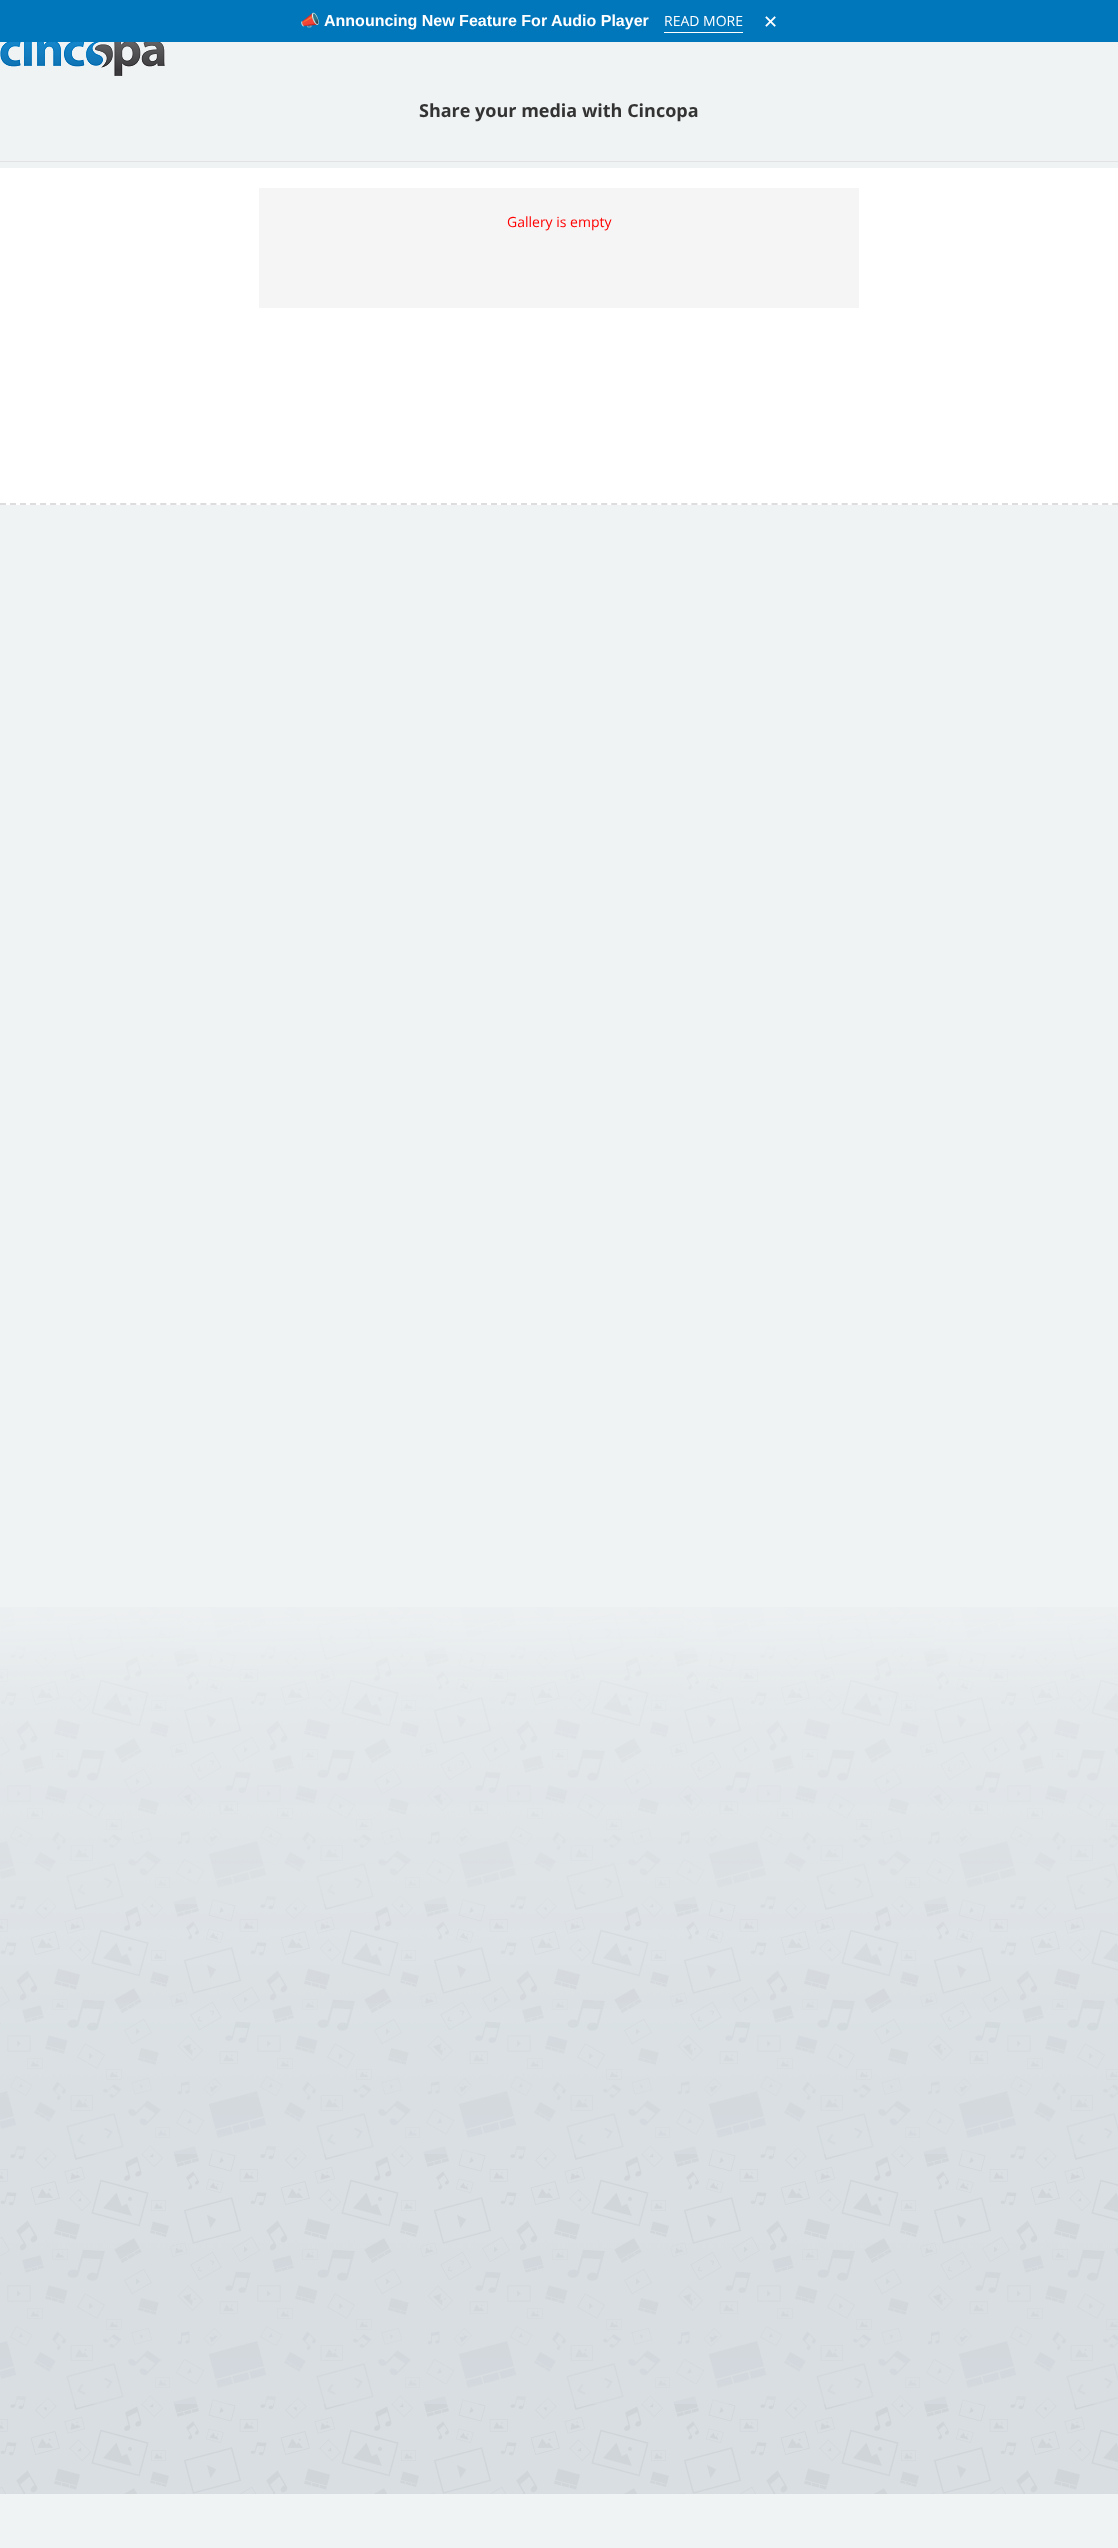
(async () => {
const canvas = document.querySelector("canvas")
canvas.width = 1118
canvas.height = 2548
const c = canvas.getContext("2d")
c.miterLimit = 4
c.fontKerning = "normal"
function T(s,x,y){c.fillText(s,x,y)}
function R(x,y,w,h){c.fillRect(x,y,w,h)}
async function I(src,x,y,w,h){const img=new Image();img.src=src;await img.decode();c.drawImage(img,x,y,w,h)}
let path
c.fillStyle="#f0f3f4"
R(0,0,1118,2548)
c.fillStyle="#0076bb"
R(0,0,1118,42)
c.font="bold 16px Noto Color Emoji"
c.fillStyle="#fff"
T("📣",300,26)
c.font="bold 16px Liberation Sans"
T("Announcing New Feature For Audio Player",324,26)
R(664,32,79,1)
c.font="14px Open Sans"
T("READ MORE",664,26)
c.font="18px DejaVu Sans"
T("✕",763,28)
await I("1.png",0,42,165,34)
c.fillStyle="#e2e2e2"
R(0,161,1118,1)
c.font="bold 18px Open Sans"
c.fillStyle="#333"
T("Share your media with Cincopa",419,117)
c.fillStyle="#fff"
R(0,168,1118,337)
path = new Path2D("M0 504h1118")
c.strokeStyle="#ddd"
c.lineWidth=2
c.setLineDash([6,4.02])
c.stroke(path)
c.fillStyle="#f5f5f5"
R(259,188,600,120)
c.font="14px Open Sans"
c.fillStyle="#f00"
T("Gallery is empty",507,227)
await I("2.png",0,1607,1118,887)
})()
